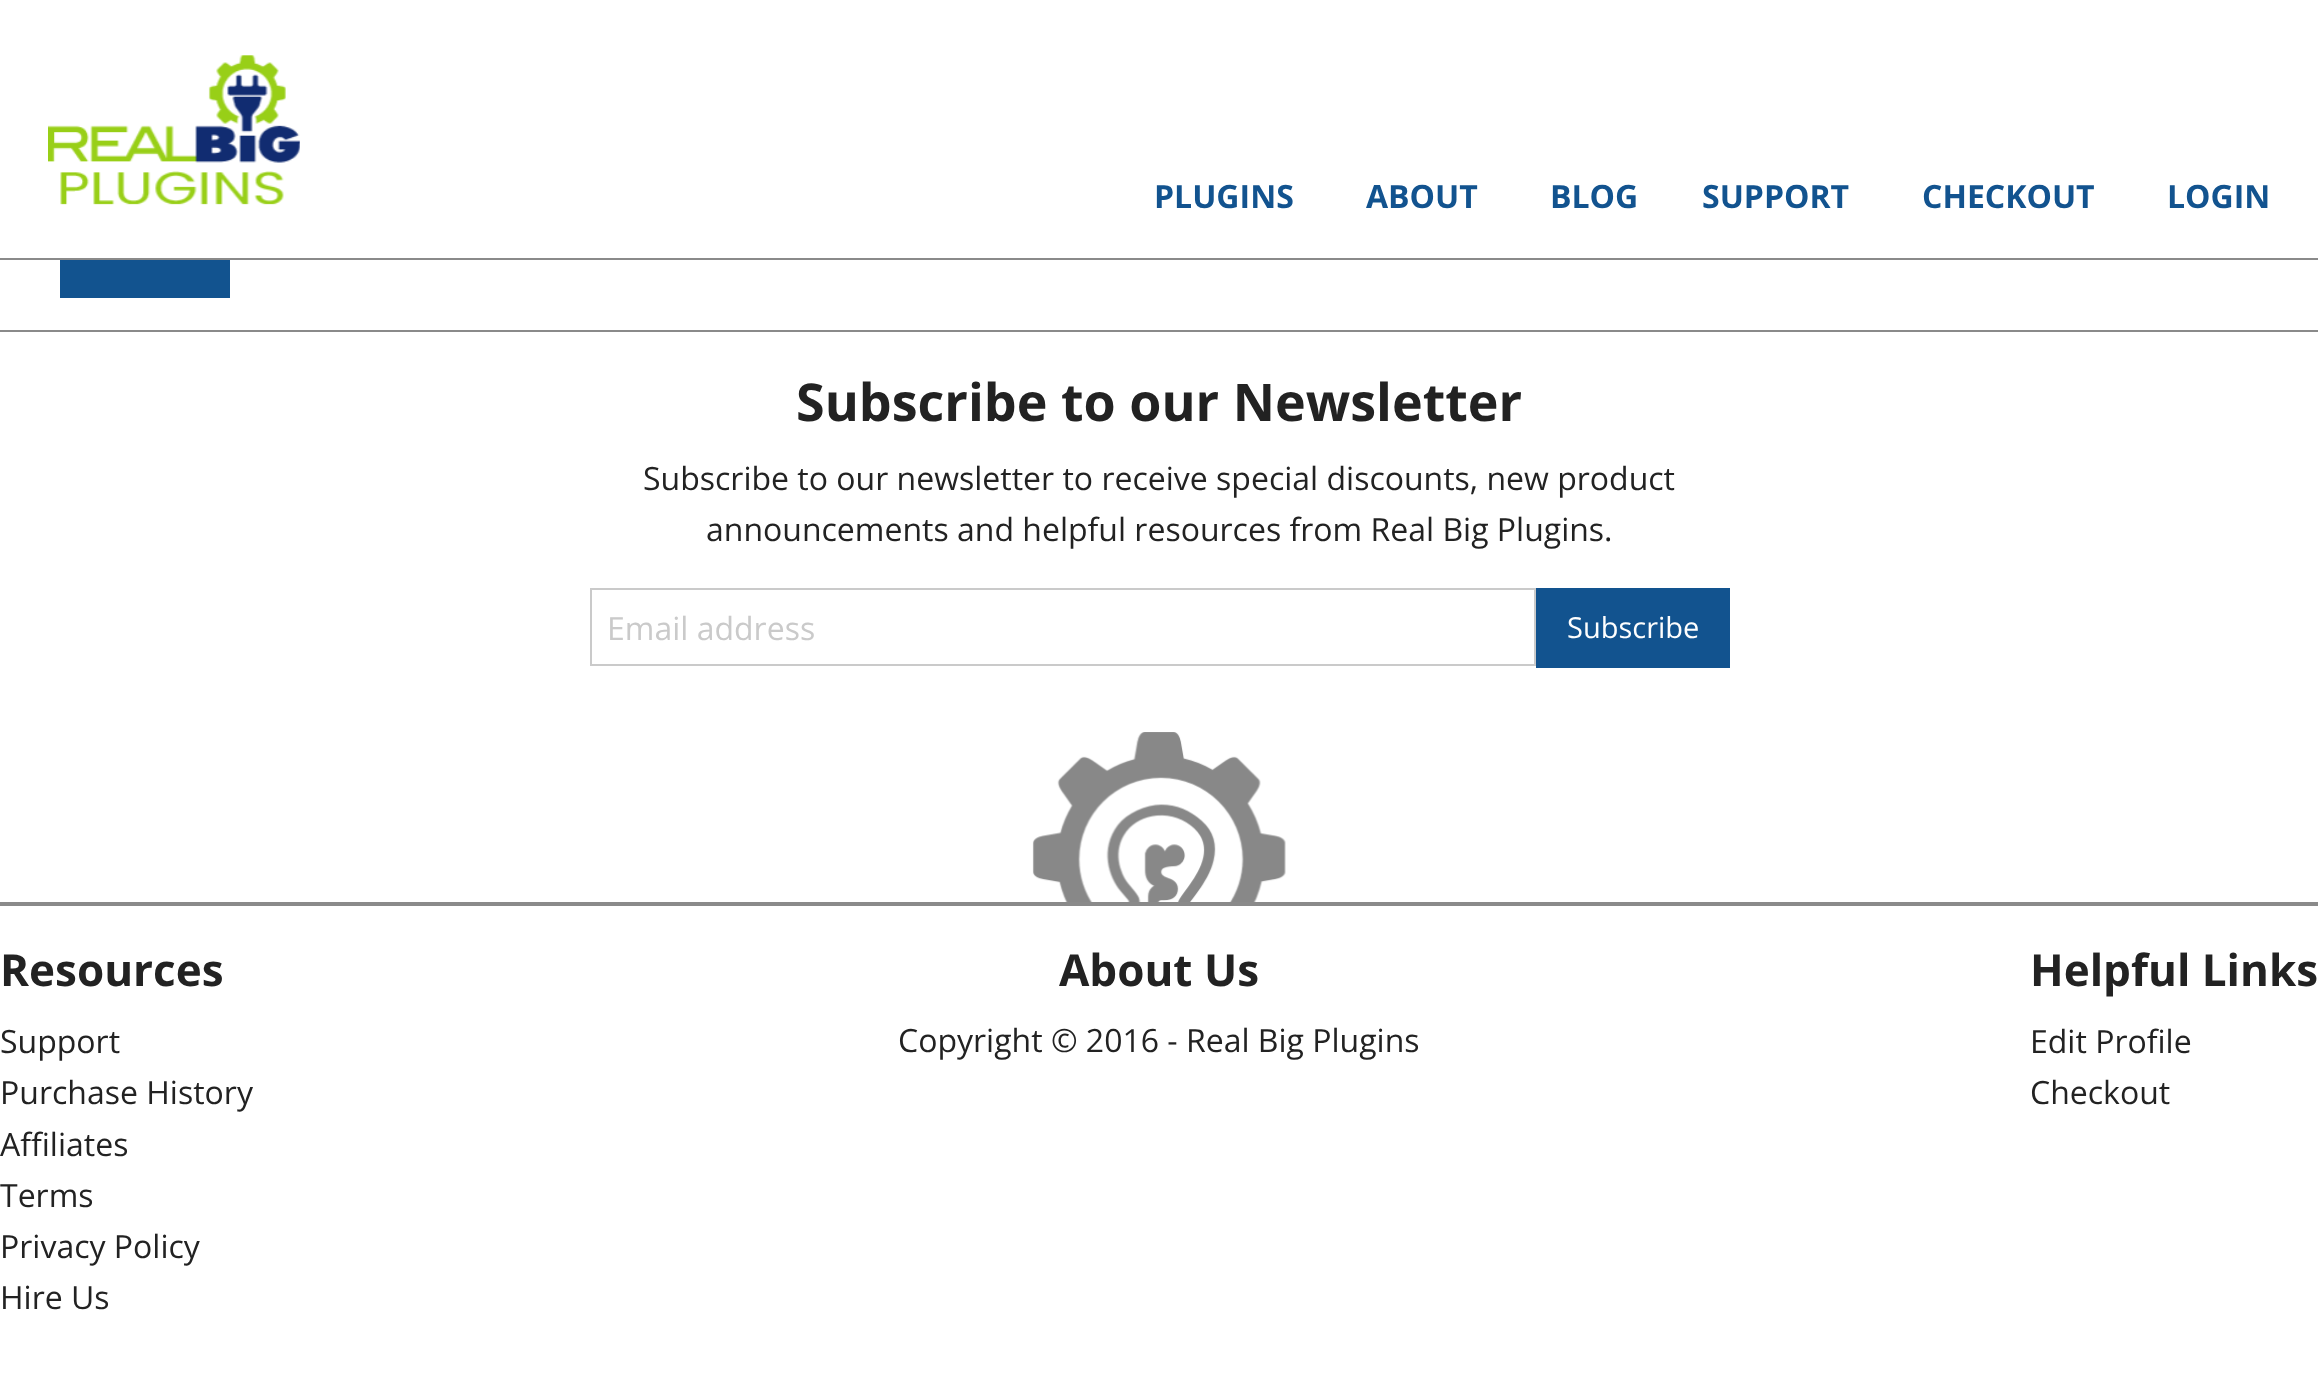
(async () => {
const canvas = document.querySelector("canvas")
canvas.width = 2318
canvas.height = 1386
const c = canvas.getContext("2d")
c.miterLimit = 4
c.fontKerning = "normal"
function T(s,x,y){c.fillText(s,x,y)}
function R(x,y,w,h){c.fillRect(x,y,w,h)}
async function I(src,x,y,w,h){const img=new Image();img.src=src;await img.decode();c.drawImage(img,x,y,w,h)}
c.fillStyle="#fff"
R(0,0,2318,1386)
c.fillStyle="#8a8a8a"
R(0,258,2318,2)
await I("1.png",48,55,252,150)
c.font="bold 32px Open Sans"
c.fillStyle="#12538f"
T("PLUGINS",1154,208)
T("ABOUT",1366,208)
T("BLOG",1550,208)
T("SUPPORT",1702,208)
T("CHECKOUT",1922,208)
T("LOGIN",2167,208)
R(60,260,170,38)
c.fillStyle="#8a8a8a"
R(0,330,2318,2)
c.font="bold 52px Open Sans"
c.fillStyle="#222"
T("Subscribe to our Newsletter",796,421)
c.font="32px Open Sans"
T("Subscribe to our newsletter to receive special discounts, new product",643,490)
T("announcements and helpful resources from Real Big Plugins.",706,541)
c.strokeStyle="#cacaca"
c.lineWidth=2
c.strokeRect(591,589,944,76)
c.fillStyle="#cacaca"
T("Email address",607,640)
c.fillStyle="#12538f"
R(1536,588,194,80)
c.font="29px Open Sans"
c.fillStyle="#fefefe"
T("Subscribe",1567,638)
await I("2.png",1032,732,254,170)
c.fillStyle="#8a8a8a"
R(0,902,2318,4)
c.font="bold 44px Open Sans"
c.fillStyle="#222"
T("Resources",0,986)
c.font="32px Open Sans"
T("Support",0,1053)
T("Purchase History",0,1104)
T("Affiliates",0,1156)
T("Terms",0,1207)
T("Privacy Policy",0,1258)
T("Hire Us",0,1309)
c.font="bold 44px Open Sans"
T("About Us",1059,986)
c.font="32px Open Sans"
T("Copyright © 2016 - Real Big Plugins",898,1052)
c.font="bold 44px Open Sans"
T("Helpful Links",2030,986)
c.font="32px Open Sans"
T("Edit Profile",2030,1053)
T("Checkout",2030,1104)
})()
